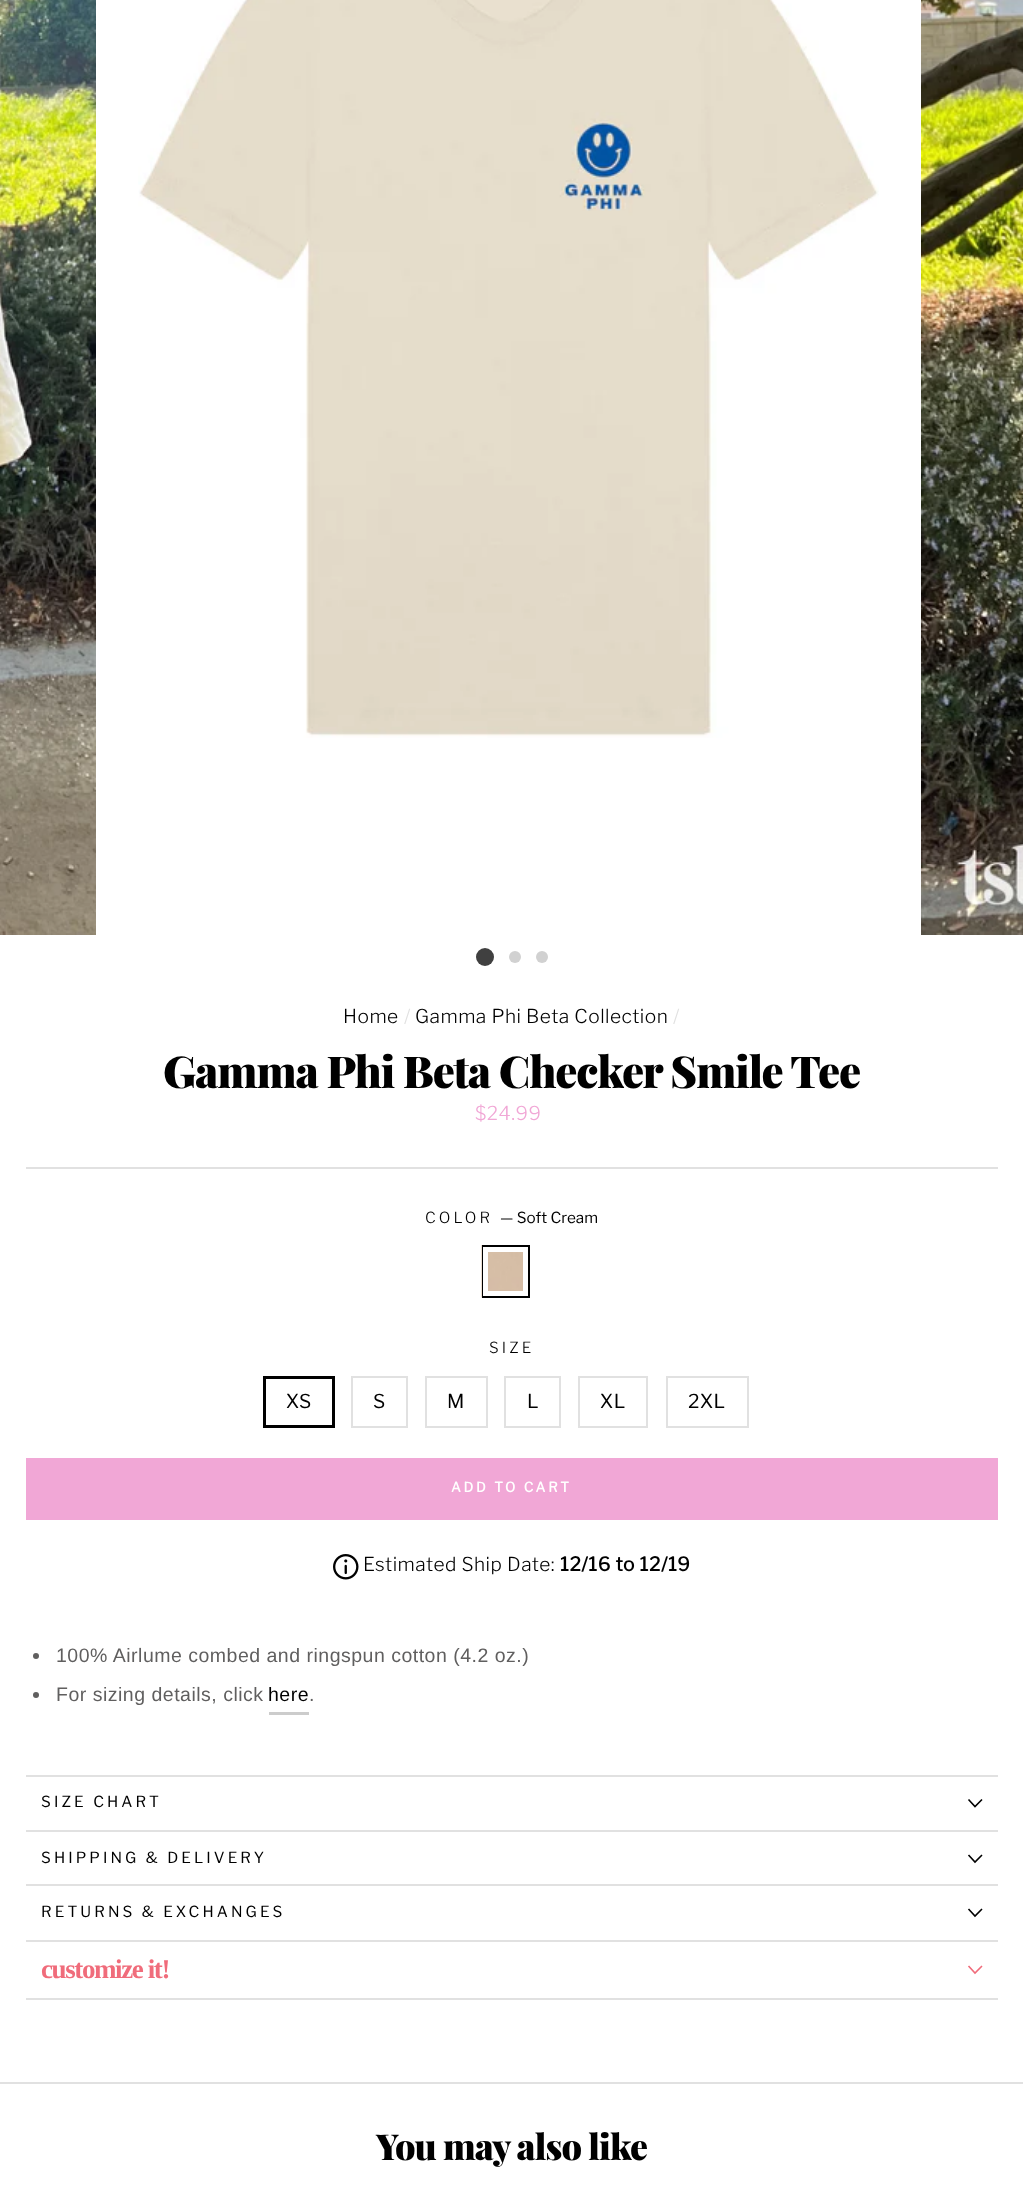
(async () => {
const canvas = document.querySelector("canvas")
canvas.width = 1023
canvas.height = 2197
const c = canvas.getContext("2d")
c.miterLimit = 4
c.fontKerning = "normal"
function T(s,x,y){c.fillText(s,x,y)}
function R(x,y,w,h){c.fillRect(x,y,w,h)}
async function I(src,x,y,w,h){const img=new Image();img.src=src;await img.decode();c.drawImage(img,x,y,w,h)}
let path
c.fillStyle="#fff"
R(0,0,1023,2197)
await I("1.png",0,0,96,935)
await I("2.png",138,0,741,738)
await I("3.png",921,0,102,935)
c.fillStyle="#404040"
c.beginPath()
c.arc(485,957,9,0,7)
c.fill()
c.fillStyle="#d1d1d1"
c.beginPath()
c.arc(515,957,6,0,7)
c.fill()
c.beginPath()
c.arc(542,957,6,0,7)
c.fill()
c.letterSpacing="0.5px"
c.font="300 19.1px Libre Franklin"
c.fillStyle="#000"
T("Home",343,1023)
c.fillStyle="#e1e1e1"
T("/",404,1023)
c.fillStyle="#000"
T("Gamma Phi Beta Collection",415,1023)
c.fillStyle="#e1e1e1"
T("/",673,1023)
c.letterSpacing="-1.1px"
c.font="900 43.9px Playfair Display"
c.fillStyle="#000"
T("Gamma Phi Beta Checker Smile Tee",163,1088)
c.letterSpacing="0.5px"
c.font="300 19.1px Libre Franklin"
c.fillStyle="#f1a7d6"
T("$24.99",475,1120)
c.fillStyle="#e1e1e1"
R(26,1167,972,2)
c.letterSpacing="3.1px"
c.font="300 15.25px Libre Franklin"
c.fillStyle="#000"
T("COLOR",425,1223)
c.letterSpacing="0px"
c.font="15.25px Libre Franklin"
T("— Soft Cream",500,1223)
await I("4.png",481,1245,42,53)
c.strokeStyle="#000"
c.lineWidth=3
c.strokeRect(483.5,1246.5,45,50)
c.strokeStyle="#fff"
c.lineWidth=5
c.strokeRect(485.5,1249.5,40,44)
c.letterSpacing="3.1px"
c.font="300 15.25px Libre Franklin"
T("SIZE",489,1353)
c.strokeStyle="#000"
c.lineWidth=3
c.strokeRect(264.5,1377.5,69,49)
c.letterSpacing="0.5px"
c.font="19.1px Libre Franklin"
T("XS",286,1408)
c.strokeStyle="#e1e1e1"
c.lineWidth=2
c.strokeRect(352,1377,55,50)
T("S",373,1408)
c.strokeRect(426,1377,61,50)
T("M",447,1408)
c.strokeRect(505,1377,55,50)
T("L",527,1408)
c.strokeRect(579,1377,68,50)
T("XL",600,1408)
c.strokeRect(667,1377,81,50)
T("2XL",688,1408)
c.fillStyle="#f1a7d6"
R(26,1458,972,62)
c.letterSpacing="2.75px"
c.font="bold 13.5px Libre Franklin"
c.fillStyle="#fff"
T("ADD TO CART",451,1492)
await I("5.png",333,1554,26,26)
c.letterSpacing="0.5px"
c.font="300 19.1px Libre Franklin"
c.fillStyle="#000"
T("Estimated Ship Date:",363,1571)
c.font="bold 19.1px Libre Franklin"
T("12/16 to 12/19",560,1571)
c.fillStyle="#605f5f"
c.beginPath()
c.arc(36,1656,3,0,7)
c.fill()
c.font="19.5px Liberation Sans"
T("100% Airlume combed and ringspun cotton (4.2 oz.)",56,1662)
c.beginPath()
c.arc(36,1695,3,0,7)
c.fill()
T("For sizing details, click",56,1701)
c.fillStyle="#ccc"
R(269,1712,40,3)
c.fillStyle="#000"
T("here",268,1701)
c.fillStyle="#605f5f"
T(".",309,1701)
c.fillStyle="#e1e1e1"
R(26,1998,972,2)
R(26,1775,972,2)
c.letterSpacing="3.1px"
c.font="15.25px Libre Franklin"
c.fillStyle="#000"
T("SIZE CHART",41,1807)
path = new Path2D("M968.5 1799.5l6.5 7l7-7")
c.strokeStyle="#000"
c.lineWidth=1.6
c.stroke(path)
c.fillStyle="#e1e1e1"
R(26,1830,972,2)
c.fillStyle="#000"
T("SHIPPING & DELIVERY",41,1863)
path = new Path2D("M968.5 1855l6.5 7l7-7")
c.stroke(path)
c.fillStyle="#e1e1e1"
R(26,1884,972,2)
c.fillStyle="#000"
T("RETURNS & EXCHANGES",41,1917)
path = new Path2D("M968.5 1909l6.5 7l7-7")
c.stroke(path)
c.fillStyle="#e1e1e1"
R(26,1940,972,2)
c.letterSpacing="-1.4px"
c.font="bold 27px Liberation Serif"
c.fillStyle="#f06c7b"
T("customize it!",41,1978)
path = new Path2D("M968.5 1966l6.5 7l7-7")
c.strokeStyle="#f06c7b"
c.stroke(path)
c.fillStyle="#e1e1e1"
R(0,2082,1023,2)
c.letterSpacing="-0.9px"
c.font="900 35.75px Playfair Display"
c.fillStyle="#000"
T("You may also like",376,2160)
})()
